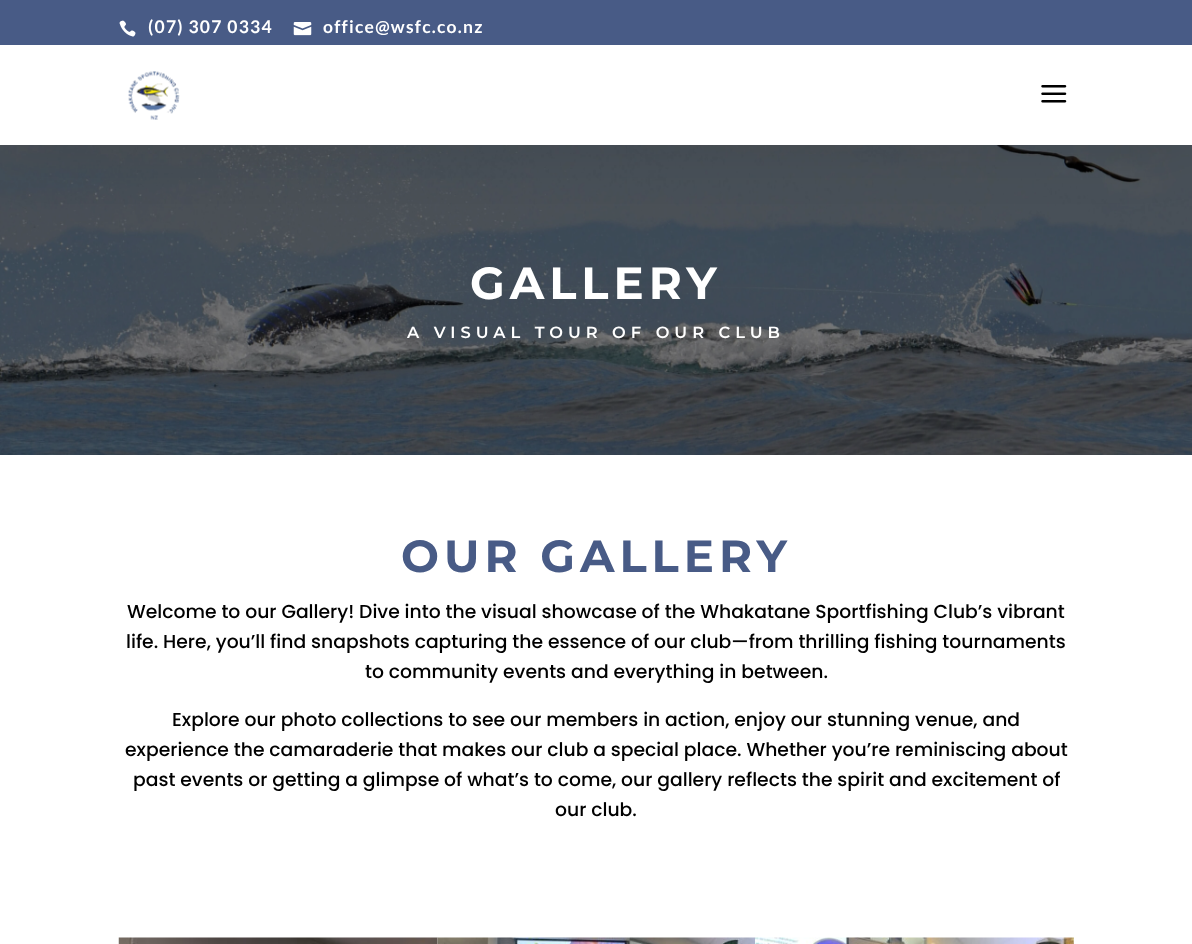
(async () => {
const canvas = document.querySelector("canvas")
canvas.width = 1192
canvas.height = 944
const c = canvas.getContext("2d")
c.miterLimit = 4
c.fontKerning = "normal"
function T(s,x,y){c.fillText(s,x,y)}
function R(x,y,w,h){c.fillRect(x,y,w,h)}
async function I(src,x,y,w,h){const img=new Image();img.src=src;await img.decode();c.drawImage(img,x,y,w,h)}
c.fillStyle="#fff"
R(0,0,1192,944)
await I("5.png",0,145,1192,310)
c.fillStyle="#0000001a"
c.filter="blur(31px)"
c.beginPath()
c.rect(0,45,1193,100)
c.fill()
c.filter="none"
c.fillStyle="#fff"
R(0,45,1192,100)
await I("1.png",128,71,52,49)
await I("2.png",1041,85,26,18)
c.fillStyle="#485b86"
R(0,0,1192,45)
await I("3.png",119,20,17,17)
c.letterSpacing="1.25px"
c.font="bold 17.5px Lato"
c.fillStyle="#fff"
T("(07) 307 0334",148,33)
await I("4.png",293,22,19,14)
T("office@wsfc.co.nz",323,33)
c.letterSpacing="5px"
c.font="bold 45px Montserrat"
T("GALLERY",470,299)
c.font="600 16.25px Montserrat"
T("A VISUAL TOUR OF OUR CLUB",407,338)
c.font="bold 45px Montserrat"
c.fillStyle="#485b86"
T("OUR GALLERY",401,572)
c.letterSpacing="0px"
c.font="500 18.75px Poppins"
c.fillStyle="#000"
T("Welcome to our Gallery! Dive into the visual showcase of the Whakatane Sportfishing Club’s vibrant",127,618)
T("life. Here, you’ll find snapshots capturing the essence of our club—from thrilling fishing tournaments",126,648)
T("to community events and everything in between.",365,678)
T("Explore our photo collections to see our members in action, enjoy our stunning venue, and",172,726)
T("experience the camaraderie that makes our club a special place. Whether you’re reminiscing about",125,756)
T("past events or getting a glimpse of what’s to come, our gallery reflects the spirit and excitement of",133,786)
T("our club.",555,816)
await I("6.png",118,937,320,7)
await I("7.png",437,937,318,7)
await I("8.png",755,937,319,7)
})()
